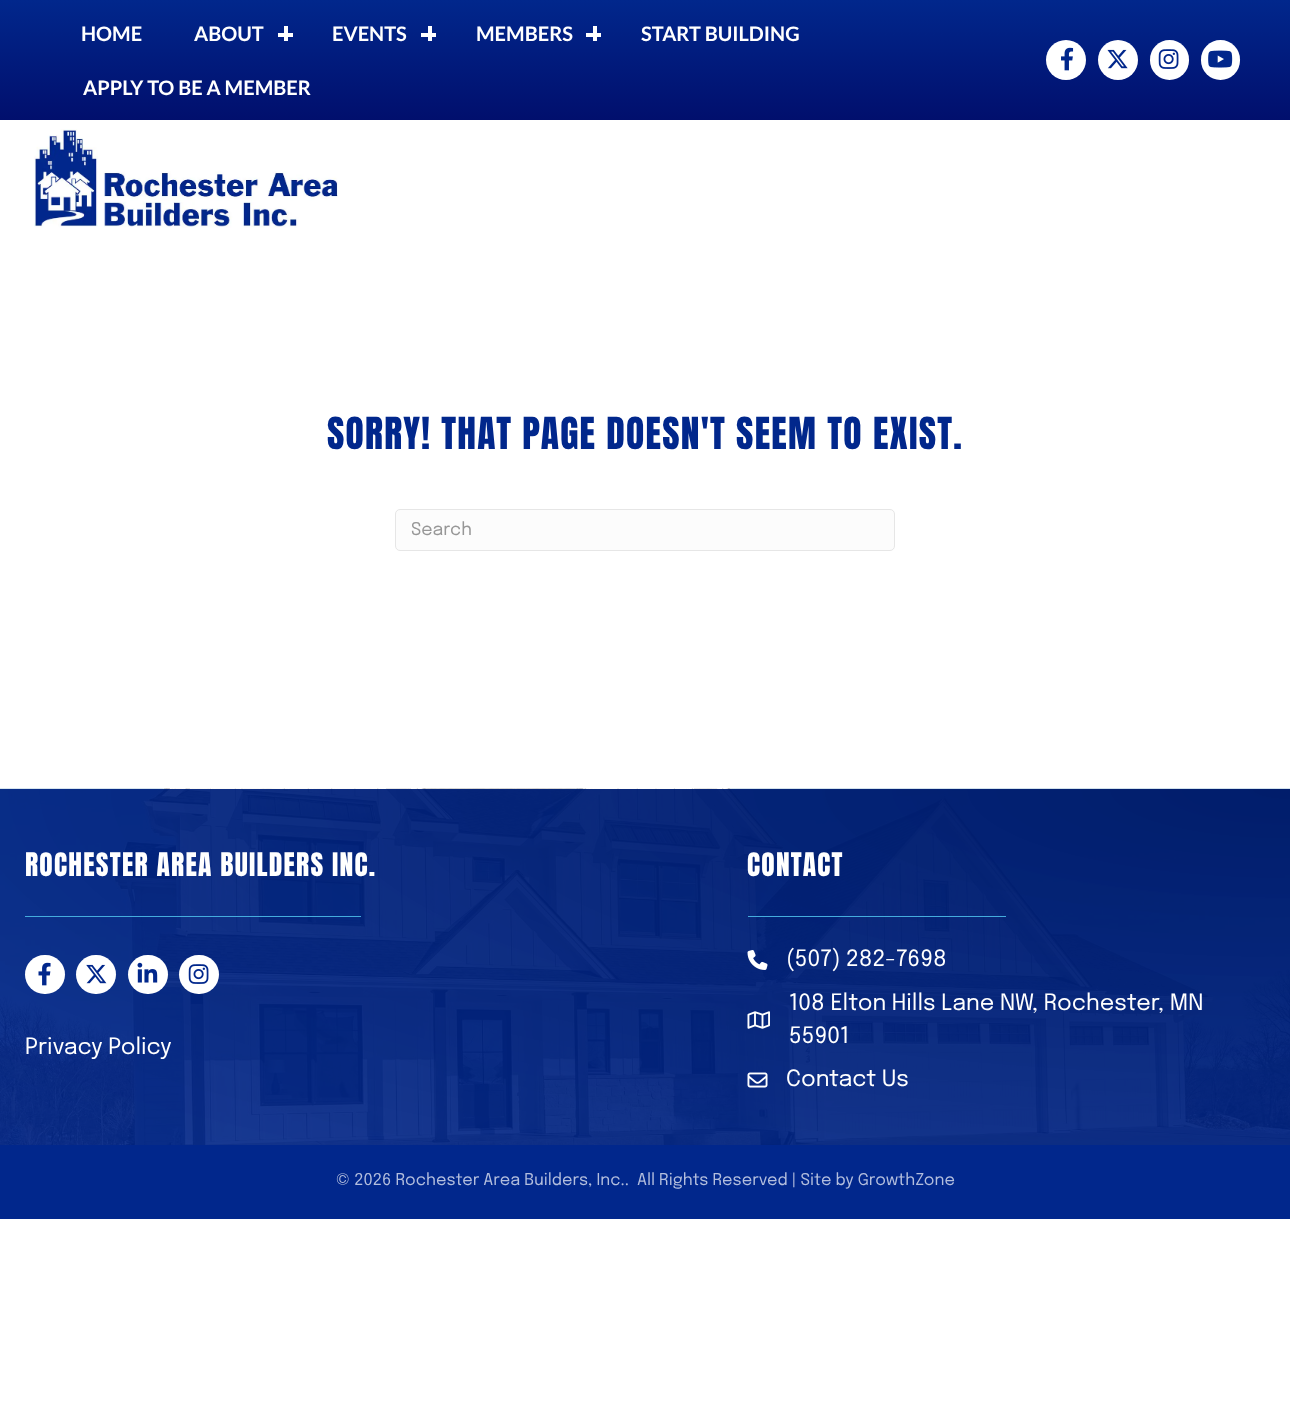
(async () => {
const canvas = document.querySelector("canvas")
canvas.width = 1290
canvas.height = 1404
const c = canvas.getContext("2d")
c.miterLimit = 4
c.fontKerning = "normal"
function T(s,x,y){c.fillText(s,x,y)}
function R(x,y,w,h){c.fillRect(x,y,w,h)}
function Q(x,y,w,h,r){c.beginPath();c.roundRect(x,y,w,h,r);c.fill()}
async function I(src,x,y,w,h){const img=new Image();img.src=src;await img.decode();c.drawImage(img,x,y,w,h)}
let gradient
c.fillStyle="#fff"
R(0,0,1290,1404)
gradient = c.createLinearGradient(645,0,645,120)
gradient.addColorStop(0,"#01278c")
gradient.addColorStop(1,"#010f6d")
c.fillStyle = gradient
R(0,0,1290,120)
c.font="bold 20px Lato"
c.fillStyle="#fff"
T("HOME",81,41)
T("ABOUT",194,41)
R(278,33,15,4)
R(284,26,4,15)
T("EVENTS",332,41)
R(421,33,15,4)
R(428,26,4,15)
T("MEMBERS",476,41)
R(586,33,15,4)
R(593,26,4,15)
T("START BUILDING",641,41)
T("APPLY TO BE A MEMBER",83,95)
c.beginPath()
c.arc(1066,60,20,0,7)
c.fill()
await I("1.png",1061,47,13,24)
c.beginPath()
c.arc(1118,60,20,0,7)
c.fill()
await I("2.png",1107,49,21,20)
Q(1150,40,39,40,19.5)
await I("3.png",1158,49,21,20)
Q(1201,40,39,40,19.5)
await I("4.png",1208,50,25,18)
await I("5.png",34,129,304,99)
c.letterSpacing="1.25px"
c.font="37.5px Anton"
c.fillStyle="#01278c"
T("SORRY! THAT PAGE DOESN'T SEEM TO EXIST.",327,449)
c.fillStyle="#fcfcfc"
c.beginPath()
c.roundRect(395.5,509.5,499,41,4.5)
c.fill()
c.strokeStyle="#e6e6e6"
c.stroke()
c.letterSpacing="0px"
c.font="17.5px Epilogue"
c.fillStyle="#979797"
T("Search",411,535)
await I("6.png",0,788,1290,357)
c.letterSpacing="1.25px"
c.font="27.5px Anton"
c.fillStyle="#fff"
T("ROCHESTER AREA BUILDERS INC.",25,876)
c.fillStyle="#44acdd"
R(25,916,336,1)
c.fillStyle="#fff"
Q(25,955,40,39,19.5)
await I("7.png",38,962,13,24)
Q(76,955,40,39,19.5)
await I("8.png",86,964,21,20)
Q(128,955,40,39,19.5)
await I("9.png",137,962,21,21)
Q(179,955,40,39,19.5)
await I("3.png",188,964,21,20)
c.letterSpacing="0px"
c.font="22.5px Epilogue"
T("Privacy Policy",25,1054)
c.letterSpacing="1.25px"
c.font="27.5px Anton"
T("CONTACT",747,876)
c.fillStyle="#44acdd"
R(748,916,258,1)
await I("10.png",747,950,21,20)
c.letterSpacing="0px"
c.font="22.5px Epilogue"
c.fillStyle="#fff"
T("(507) 282-7698",786,966)
await I("11.png",747,1011,23,18)
T("108 Elton Hills Lane NW, Rochester, MN",789,1010)
T("55901",789,1043)
await I("12.png",747,1072,21,16)
T("Contact Us",786,1086)
c.fillStyle="#01278c"
R(0,1145,1290,74)
c.font="16.25px Epilogue"
c.fillStyle="#b3bedd"
T("© 2026 Rochester Area Builders, Inc..",336,1185)
T("All Rights Reserved | Site by GrowthZone",637,1185)
})()
